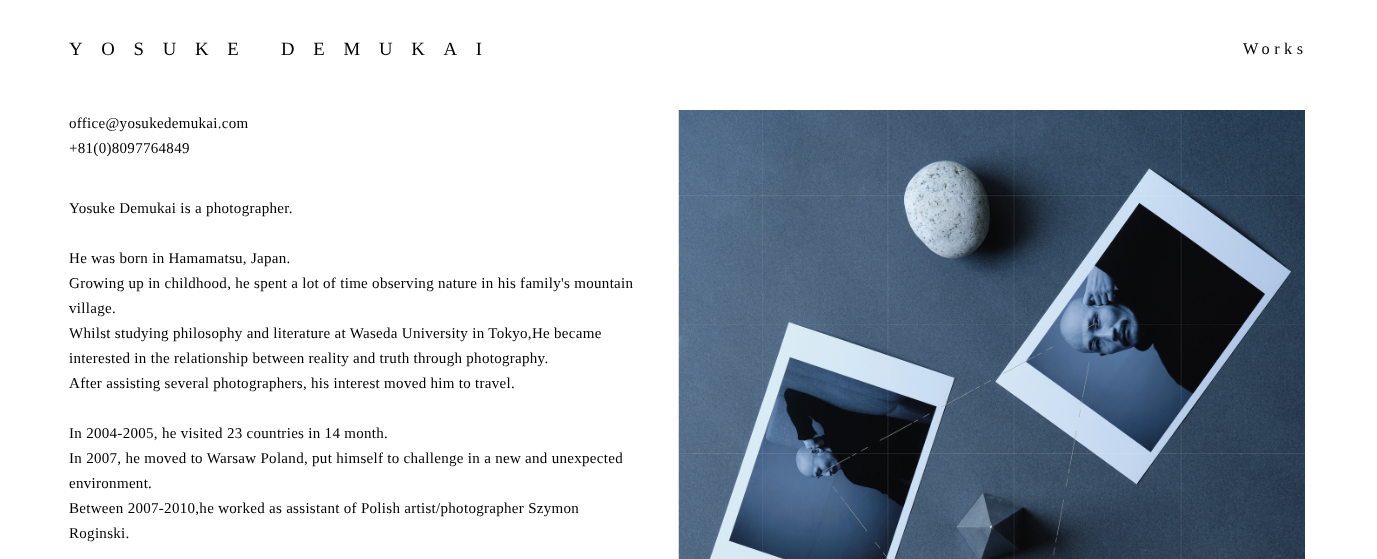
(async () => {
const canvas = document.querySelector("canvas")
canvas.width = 1377
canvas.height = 559
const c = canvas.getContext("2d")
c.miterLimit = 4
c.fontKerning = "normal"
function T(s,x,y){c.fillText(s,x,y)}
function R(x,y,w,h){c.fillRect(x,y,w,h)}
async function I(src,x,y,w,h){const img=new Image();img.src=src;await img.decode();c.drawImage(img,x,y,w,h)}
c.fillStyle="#fff"
R(0,0,1377,559)
c.letterSpacing="18.75px"
c.font="18.75px Liberation Serif"
c.fillStyle="#000"
T("YOSUKE DEMUKAI",69,55)
c.letterSpacing="4.5px"
c.font="16.25px Liberation Serif"
T("Works",1243,54)
c.letterSpacing="0.3px"
c.font="15px Liberation Serif"
T("office@yosukedemukai.com",69,128)
T("+81(0)8097764849",69,153)
T("Yosuke Demukai is a photographer.",69,213)
T("He was born in Hamamatsu, Japan.",69,263)
T("Growing up in childhood, he spent a lot of time observing nature in his family's mountain",69,288)
T("village.",69,313)
T("Whilst studying philosophy and literature at Waseda University in Tokyo,He became",69,338)
T("interested in the relationship between reality and truth through photography.",69,363)
T("After assisting several photographers, his interest moved him to travel.",69,388)
T("In 2004-2005, he visited 23 countries in 14 month.",69,438)
T("In 2007, he moved to Warsaw Poland, put himself to challenge in a new and unexpected",69,463)
T("environment.",69,488)
T("Between 2007-2010,he worked as assistant of Polish artist/photographer Szymon",69,513)
T("Roginski.",69,538)
await I("1.png",678,110,627,449)
})()
